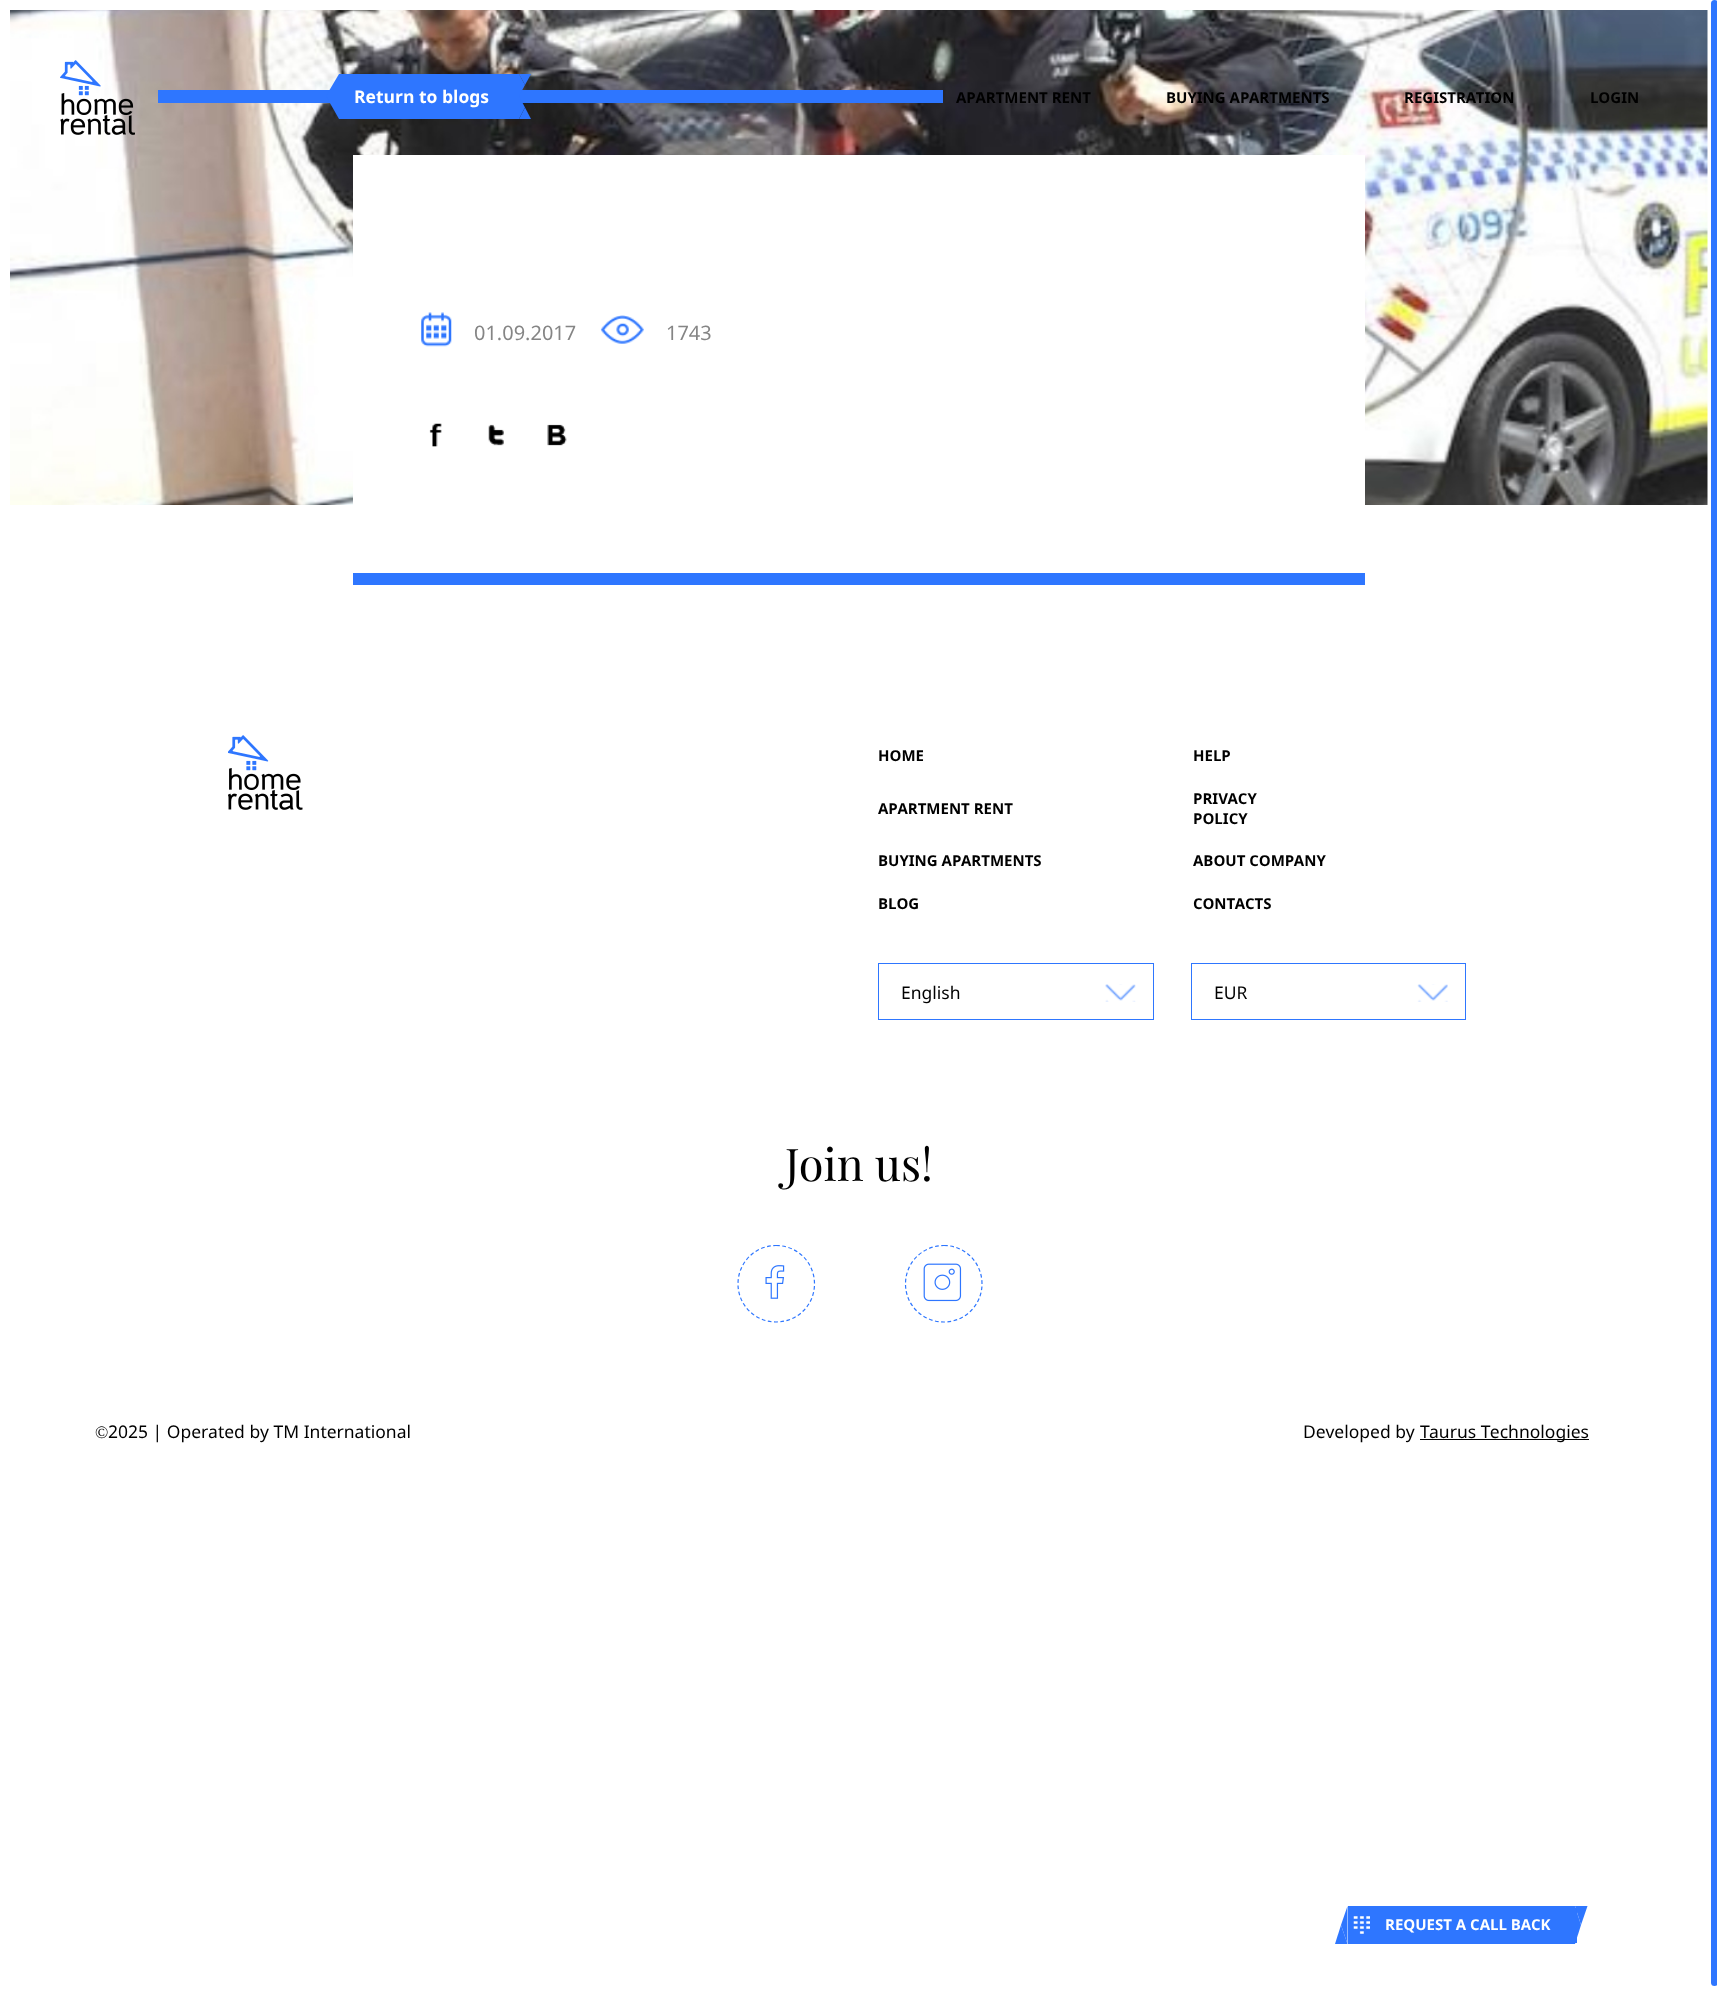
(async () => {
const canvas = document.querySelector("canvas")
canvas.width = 1717
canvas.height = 2006
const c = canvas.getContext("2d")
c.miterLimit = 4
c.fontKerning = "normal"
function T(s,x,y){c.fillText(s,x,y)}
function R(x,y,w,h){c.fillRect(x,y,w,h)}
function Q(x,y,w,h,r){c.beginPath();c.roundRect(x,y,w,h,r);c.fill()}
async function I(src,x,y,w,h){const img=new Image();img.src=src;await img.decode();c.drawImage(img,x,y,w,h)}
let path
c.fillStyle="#fff"
R(0,0,1717,2006)
await I("2.png",10,10,1698,495)
await I("1.png",60,60,75,75)
c.fillStyle="#2e76ff"
R(158,90,785,13)
R(339,74,180,45)
path = new Path2D("M339 74v45l-13-23z")
c.fill(path)
path = new Path2D("M519 74h12l-6 11z")
c.fill(path)
path = new Path2D("M519 96v-22l6 11z")
c.fill(path)
c.font="bold 17.5px Noto Sans"
c.fillStyle="#fff"
T("Return to blogs",354,103)
c.fillStyle="#2e76ff"
path = new Path2D("M531 119h-12l6-11.5z")
c.fill(path)
path = new Path2D("M519 119v-23l6 11.5z")
c.fill(path)
c.font="bold 15px Noto Sans"
c.fillStyle="#000"
T("APARTMENT RENT",956,103)
T("BUYING APARTMENTS",1166,103)
T("REGISTRATION",1404,103)
T("LOGIN",1590,103)
c.fillStyle="#fff"
R(353,155,1012,350)
c.fillStyle="#2e76ff"
R(353,573,1012,12)
await I("3.png",421,312,31,35)
c.font="20px Noto Sans"
c.fillStyle="#858585"
T("01.09.2017",474,340)
await I("4.png",600,315,44,29)
T("1743",666,340)
await I("5.png",429,423,13,24)
await I("6.png",488,424,16,22)
await I("7.png",547,424,20,22)
await I("8.png",228,735,75,75)
c.font="bold 15px Noto Sans"
c.fillStyle="#000"
T("HOME",878,761)
T("HELP",1193,761)
T("APARTMENT RENT",878,814)
T("PRIVACY",1193,804)
T("POLICY",1193,824)
T("BUYING APARTMENTS",878,866)
T("ABOUT COMPANY",1193,866)
T("BLOG",878,909)
T("CONTACTS",1193,909)
c.strokeStyle="#2e76ff"
c.strokeRect(878.5,963.5,275,56)
c.font="17.5px Noto Sans"
T("English",901,999)
await I("9.png",1105,984,31,18)
c.strokeRect(1191.5,963.5,274,56)
T("EUR",1214,999)
await I("10.png",1417,984,31,18)
c.font="45px Playfair Display"
T("Join us!",785,1181)
await I("11.png",765,1265,20,34)
path = new Path2D("M776 1245.5c21.5 0 38.5 17 38.5 38.5c0 21-17 38-38.5 38c-21 0-38-17-38-38c0-21.5 17-38.5 38-38.5z")
c.lineWidth=1.2
c.setLineDash([3.75,2.5])
c.stroke(path)
await I("12.png",923,1263,39,39)
path = new Path2D("M944 1245.5c21 0 38 17 38 38.5c0 21-17 38-38 38c-21.5 0-38.5-17-38.5-38c0-21.5 17-38.5 38.5-38.5z")
c.stroke(path)
c.font="17.5px Liberation Serif"
T("©",95,1438)
c.font="17.5px Noto Sans"
T("2025 | Operated by TM International",108,1438)
T("Developed by",1303,1438)
R(1420,1439,169,1)
T("Taurus Technologies",1420,1438)
c.fillStyle="#2e76ff"
Q(1711,0,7,1986,3.5)
path = new Path2D("M1347.5 1906v38l-6.5-19z")
c.fill(path)
path = new Path2D("M1347.5 1944h-12.5l6-19z")
c.fill(path)
R(1575,1908,2,35)
path = new Path2D("M1575 1906h12.5l-6.5 19z")
c.fill(path)
path = new Path2D("M1575 1944v-38l6 19z")
c.fill(path)
R(1348,1906,227,38)
await I("13.png",1353,1916,17,18)
c.font="bold 15px Noto Sans"
c.fillStyle="#fff"
T("REQUEST A CALL BACK",1385,1930)
})()
